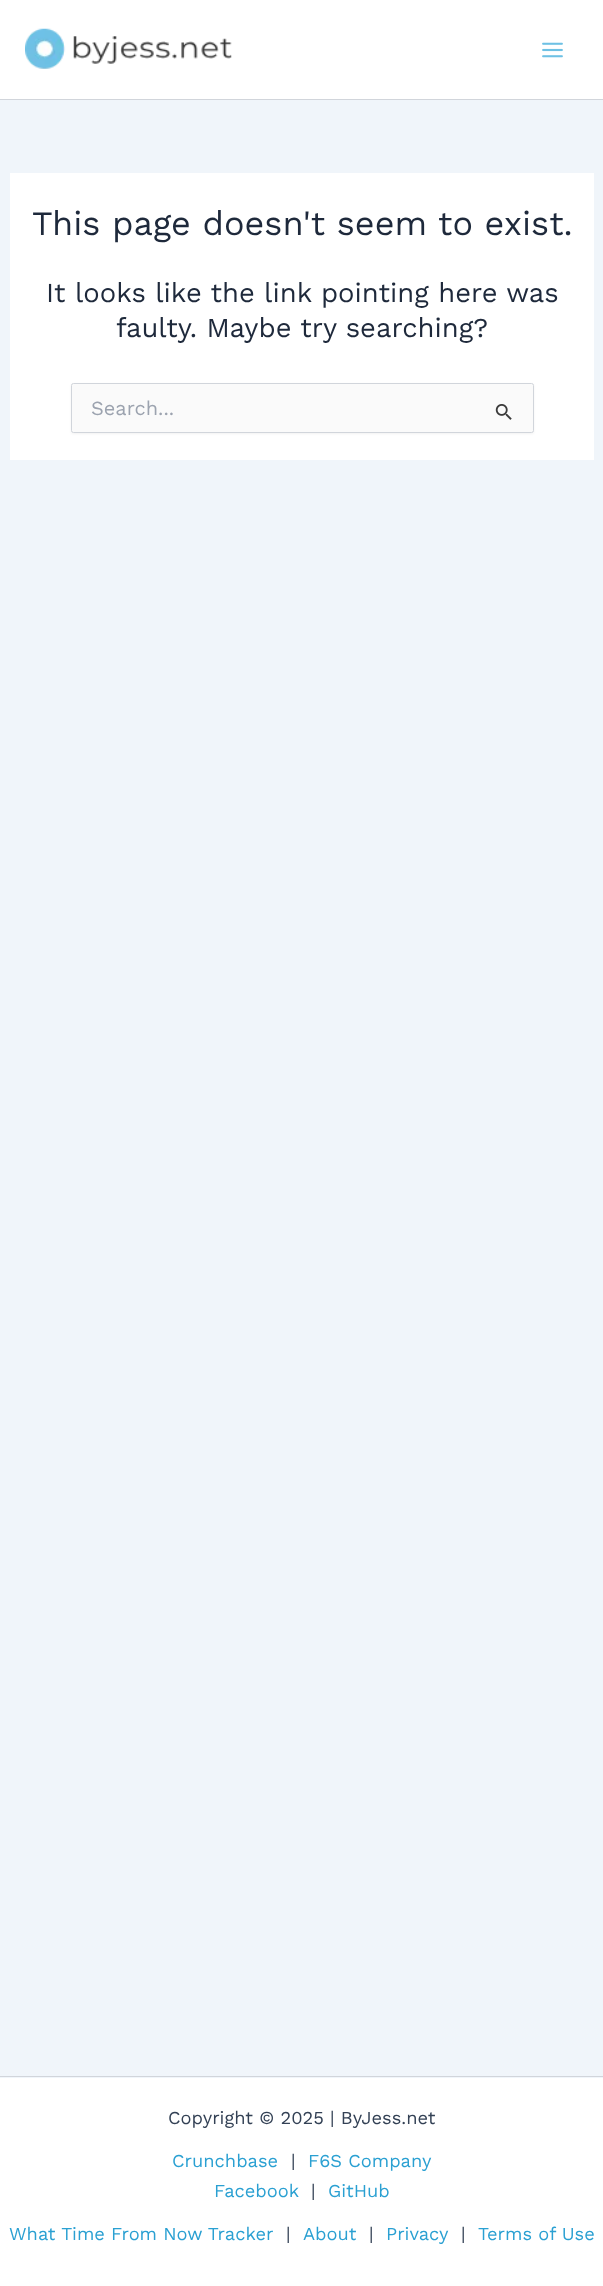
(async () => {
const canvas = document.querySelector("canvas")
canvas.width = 603
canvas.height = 2286
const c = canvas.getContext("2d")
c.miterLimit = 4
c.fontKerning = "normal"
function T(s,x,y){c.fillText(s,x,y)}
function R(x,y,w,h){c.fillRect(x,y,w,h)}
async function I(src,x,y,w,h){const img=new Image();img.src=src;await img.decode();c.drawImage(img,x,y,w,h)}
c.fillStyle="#f0f5fa"
R(0,0,603,2286)
c.fillStyle="#fff"
R(0,0,603,99)
c.fillStyle="#d1d5db"
R(0,99,603,1)
await I("1.png",25,28,207,41)
await I("2.png",542,42,21,16)
c.fillStyle="#fff"
R(10,173,584,287)
c.font="34.25px Work Sans"
c.fillStyle="#1e293b"
T("This page doesn't seem to exist.",32,235)
c.font="27.4px Work Sans"
T("It looks like the link pointing here was",46,302)
T("faulty. Maybe try searching?",116,337)
c.fillStyle="#0000000d"
c.filter="blur(1px)"
c.beginPath()
c.roundRect(71,384,463,50,2.5)
c.fill()
c.filter="none"
c.fillStyle="#fafafa"
c.beginPath()
c.roundRect(71.5,383.5,462,49,2)
c.fill()
c.strokeStyle="#d1d5db"
c.stroke()
c.font="20px Work Sans"
c.fillStyle="#9ca3af"
T("Search...",91,415)
await I("3.png",495,404,17,16)
c.fillStyle="#fff"
R(0,2078,603,208)
c.fillStyle="#d1d5db"
R(0,2076,603,1)
c.font="18.3px Work Sans"
c.fillStyle="#334155"
T("Copyright © 2025 | ByJess.net",168,2124)
c.fillStyle="#2aa0d2"
T("Crunchbase",172,2167)
c.fillStyle="#334155"
T("|",291,2167)
c.fillStyle="#2aa0d2"
T("F6S Company",308,2167)
T("Facebook",214,2197)
c.fillStyle="#334155"
T("|",311,2197)
c.fillStyle="#2aa0d2"
T("GitHub",328,2197)
T("What Time From Now Tracker",9,2240)
c.fillStyle="#334155"
T("|",286,2240)
c.fillStyle="#2aa0d2"
T("About",303,2240)
c.fillStyle="#334155"
T("|",369,2240)
c.fillStyle="#2aa0d2"
T("Privacy",386,2240)
c.fillStyle="#334155"
T("|",461,2240)
c.fillStyle="#2aa0d2"
T("Terms of Use",478,2240)
})()
